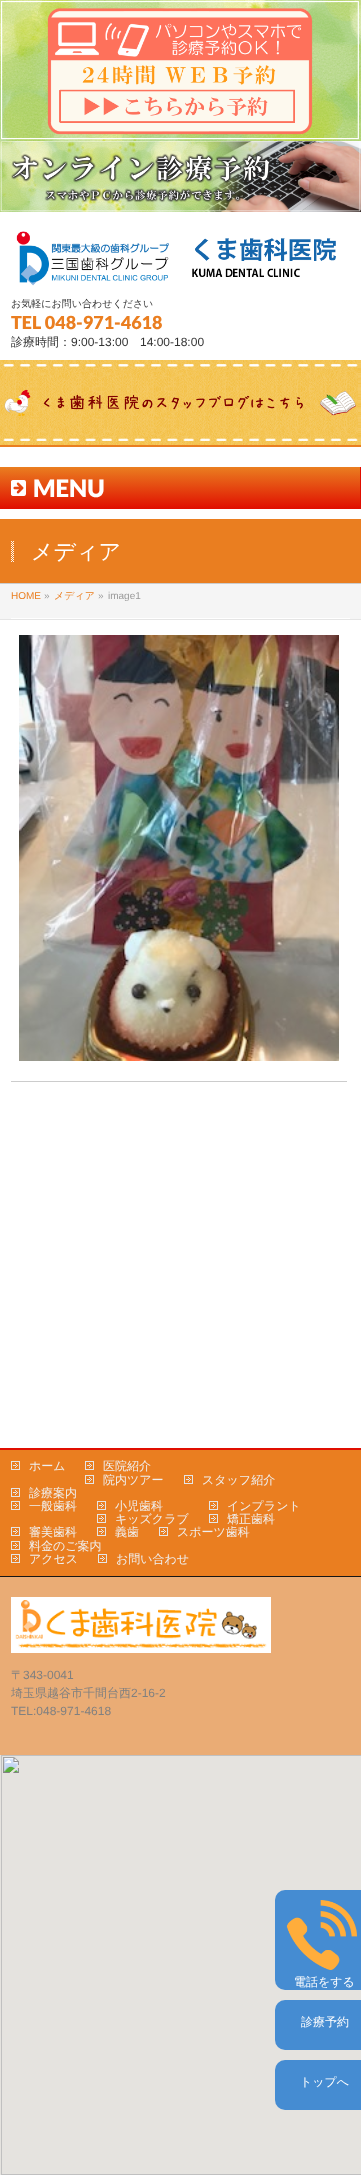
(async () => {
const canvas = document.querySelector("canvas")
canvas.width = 361
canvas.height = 2180
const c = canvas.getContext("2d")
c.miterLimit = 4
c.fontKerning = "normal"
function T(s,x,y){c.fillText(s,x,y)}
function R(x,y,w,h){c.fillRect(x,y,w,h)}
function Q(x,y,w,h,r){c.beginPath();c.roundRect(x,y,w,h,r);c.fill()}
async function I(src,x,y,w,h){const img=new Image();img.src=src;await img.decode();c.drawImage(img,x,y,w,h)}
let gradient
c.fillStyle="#fff"
R(0,0,361,2180)
await I("1.png",0,0,361,141)
await I("2.png",0,141,361,71)
await I("3.png",16,231,320,55)
c.font="500 10px WenQuanYi Zen Hei"
c.fillStyle="#333"
T("お気軽にお問い合わせください",11,307)
c.font="900 18px Lato"
c.fillStyle="#ea7e20"
T("TEL 048-971-4618",11,329)
c.font="500 12px WenQuanYi Zen Hei"
c.fillStyle="#333"
T("診療時間：",11,346)
c.font="12px Liberation Sans"
T("9:00-13:00",71,346)
T("14:00-18:00",140,346)
await I("4.png",0,360,361,29)
await I("5.png",0,389,361,28)
await I("6.png",0,417,361,28)
c.fillStyle="#ea7e20"
R(0,445,361,2)
gradient = c.createLinearGradient(180,467,180,509)
gradient.addColorStop(0,"#ea7e20")
gradient.addColorStop(1,"#e00e00")
c.fillStyle = gradient
R(0,467,360,42)
c.fillStyle="#e00e00"
R(360,467,1,42)
await I("7.png",11,480,15,16)
c.font="900 24px Lato"
c.fillStyle="#fff"
T("MENU",33,497)
c.fillStyle="#ea7e20"
R(0,519,361,64)
c.fillStyle="#ccc"
R(0,583,361,1)
await I("8.png",11,541,3,21)
c.font="500 22px WenQuanYi Zen Hei"
c.fillStyle="#fff"
T("メディア",31,559)
c.fillStyle="#f5f5f5"
R(0,584,361,35)
c.fillStyle="#e5e5e5"
R(0,619,361,1)
c.fillStyle="#fff"
R(11,618,339,1)
c.font="10px Liberation Sans"
c.fillStyle="#ea7e20"
T("HOME",11,599)
c.fillStyle="#999"
T("»",44,599)
c.font="500 10px WenQuanYi Zen Hei"
c.fillStyle="#ea7e20"
T("メディア",54,599)
c.font="10px Liberation Sans"
c.fillStyle="#999"
T("»",98,599)
T("image1",108,599)
await I("9.png",19,635,320,426)
c.fillStyle="#ccc"
R(11,1081,336,1)
c.fillStyle="#ea7e20"
R(0,1450,361,126)
c.fillStyle="#e00e00"
R(0,1448,361,2)
await I("10.png",11,1461,9,9)
c.font="500 12px WenQuanYi Zen Hei"
c.fillStyle="#efefef"
T("ホーム",29,1470)
await I("10.png",85,1461,9,9)
T("医院紹介",103,1470)
await I("10.png",85,1475,9,9)
T("院内ツアー",103,1484)
await I("10.png",184,1475,9,9)
T("スタッフ紹介",202,1484)
await I("10.png",11,1488,9,9)
T("診療案内",29,1497)
await I("10.png",11,1501,9,9)
T("一般歯科",29,1510)
await I("10.png",97,1501,9,9)
T("小児歯科",115,1510)
await I("10.png",97,1514,9,9)
T("キッズクラブ",115,1523)
await I("10.png",209,1501,9,9)
T("インプラント",227,1510)
await I("10.png",209,1514,9,9)
T("矯正歯科",227,1523)
await I("10.png",11,1527,9,9)
T("審美歯科",29,1536)
await I("10.png",97,1527,9,9)
T("義歯",115,1536)
await I("10.png",159,1527,9,9)
T("スポーツ歯科",177,1536)
await I("10.png",11,1541,9,9)
T("料金のご案内",29,1550)
await I("10.png",11,1554,9,9)
T("アクセス",29,1563)
await I("10.png",98,1554,9,9)
T("お問い合わせ",116,1563)
c.fillStyle="#eaac75"
R(0,1577,361,178)
c.fillStyle="#151515"
R(0,1576,361,1)
await I("11.png",11,1597,260,56)
c.fillStyle="#808080"
T("〒",11,1679)
c.font="12px Liberation Sans"
T("343-0041",23,1679)
c.font="500 12px WenQuanYi Zen Hei"
T("埼玉県越谷市千間台西",11,1697)
c.font="12px Liberation Sans"
T("2-16-2",131,1697)
T("TEL:048-971-4618",11,1715)
await I("12.png",0,1755,361,420)
c.fillStyle="#458cd2"
Q(275,1890,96,100,10)
await I("13.png",286,1900,71,70)
c.font="500 12px WenQuanYi Zen Hei"
c.fillStyle="#fff"
T("電話をする",294,1986)
c.fillStyle="#458cd2"
Q(275,2000,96,50,10)
c.fillStyle="#fff"
T("診療予約",301,2026)
c.fillStyle="#458cd2"
Q(275,2060,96,50,10)
c.fillStyle="#fff"
T("トップへ",300,2086)
})()
